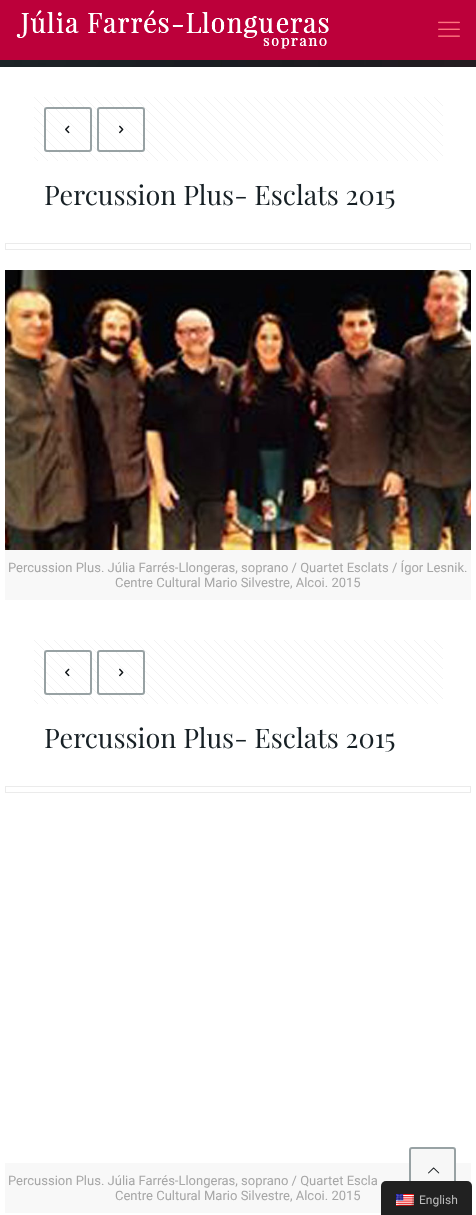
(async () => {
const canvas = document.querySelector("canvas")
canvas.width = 476
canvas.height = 1215
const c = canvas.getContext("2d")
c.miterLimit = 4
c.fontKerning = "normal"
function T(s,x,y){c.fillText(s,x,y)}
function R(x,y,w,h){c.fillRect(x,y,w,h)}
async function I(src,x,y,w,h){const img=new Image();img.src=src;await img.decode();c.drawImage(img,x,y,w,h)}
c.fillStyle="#fff"
R(0,0,476,1215)
await I("1.png",0,60,476,7)
c.fillStyle="#bc003a"
R(0,0,476,60)
await I("2.png",16,10,313,39)
await I("3.png",438,21,22,16)
await I("4.png",34,97,409,64)
c.beginPath()
c.roundRect(45,108,46,43,2)
c.strokeStyle="#98a2a4"
c.lineWidth=2
c.stroke()
await I("5.png",65,125,5,9)
c.beginPath()
c.roundRect(98,108,46,43,2)
c.stroke()
await I("6.png",119,125,5,9)
c.font="27px Playfair Display"
c.fillStyle="#172025"
T("Percussion Plus- Esclats 2015",44,205)
c.strokeStyle="#ebebeb"
c.lineWidth=1
c.strokeRect(5.5,243.5,465,6)
await I("7.png",5,270,466,280)
c.fillStyle="#f8f8f8"
R(5,550,466,50)
c.font="13px Roboto"
c.fillStyle="#a6a6a6"
T("Percussion Plus. Júlia Farrés-Llongeras, soprano / Quartet Esclats / Ígor Lesnik.",8,572)
T("Centre Cultural Mario Silvestre, Alcoi. 2015",115,587)
await I("4.png",34,640,409,64)
c.beginPath()
c.roundRect(45,651,46,43,2)
c.strokeStyle="#98a2a4"
c.lineWidth=2
c.stroke()
await I("5.png",65,668,5,9)
c.beginPath()
c.roundRect(98,651,46,43,2)
c.stroke()
await I("6.png",119,668,5,9)
c.font="27px Playfair Display"
c.fillStyle="#172025"
T("Percussion Plus- Esclats 2015",44,748)
c.strokeStyle="#ebebeb"
c.lineWidth=1
c.strokeRect(5.5,786.5,465,6)
c.fillStyle="#f8f8f8"
R(5,1163,466,50)
c.font="13px Roboto"
c.fillStyle="#a6a6a6"
T("Percussion Plus. Júlia Farrés-Llongeras, soprano / Quartet Escla",8,1185)
T("Centre Cultural Mario Silvestre, Alcoi. 2015",115,1200)
c.fillStyle="#f7f7f7"
c.beginPath()
c.roundRect(410,1148,45,45,2)
c.fill()
c.strokeStyle="#98a2a4"
c.lineWidth=2
c.stroke()
await I("8.png",428,1167,12,7)
c.fillStyle="#212121"
c.beginPath()
c.roundRect(381,1181,91,34,[5,5,0,0])
c.fill()
await I("9.png",396,1194,18,12)
c.font="12px Roboto"
c.fillStyle="#bdbdbd"
T("English",419,1204)
})()
